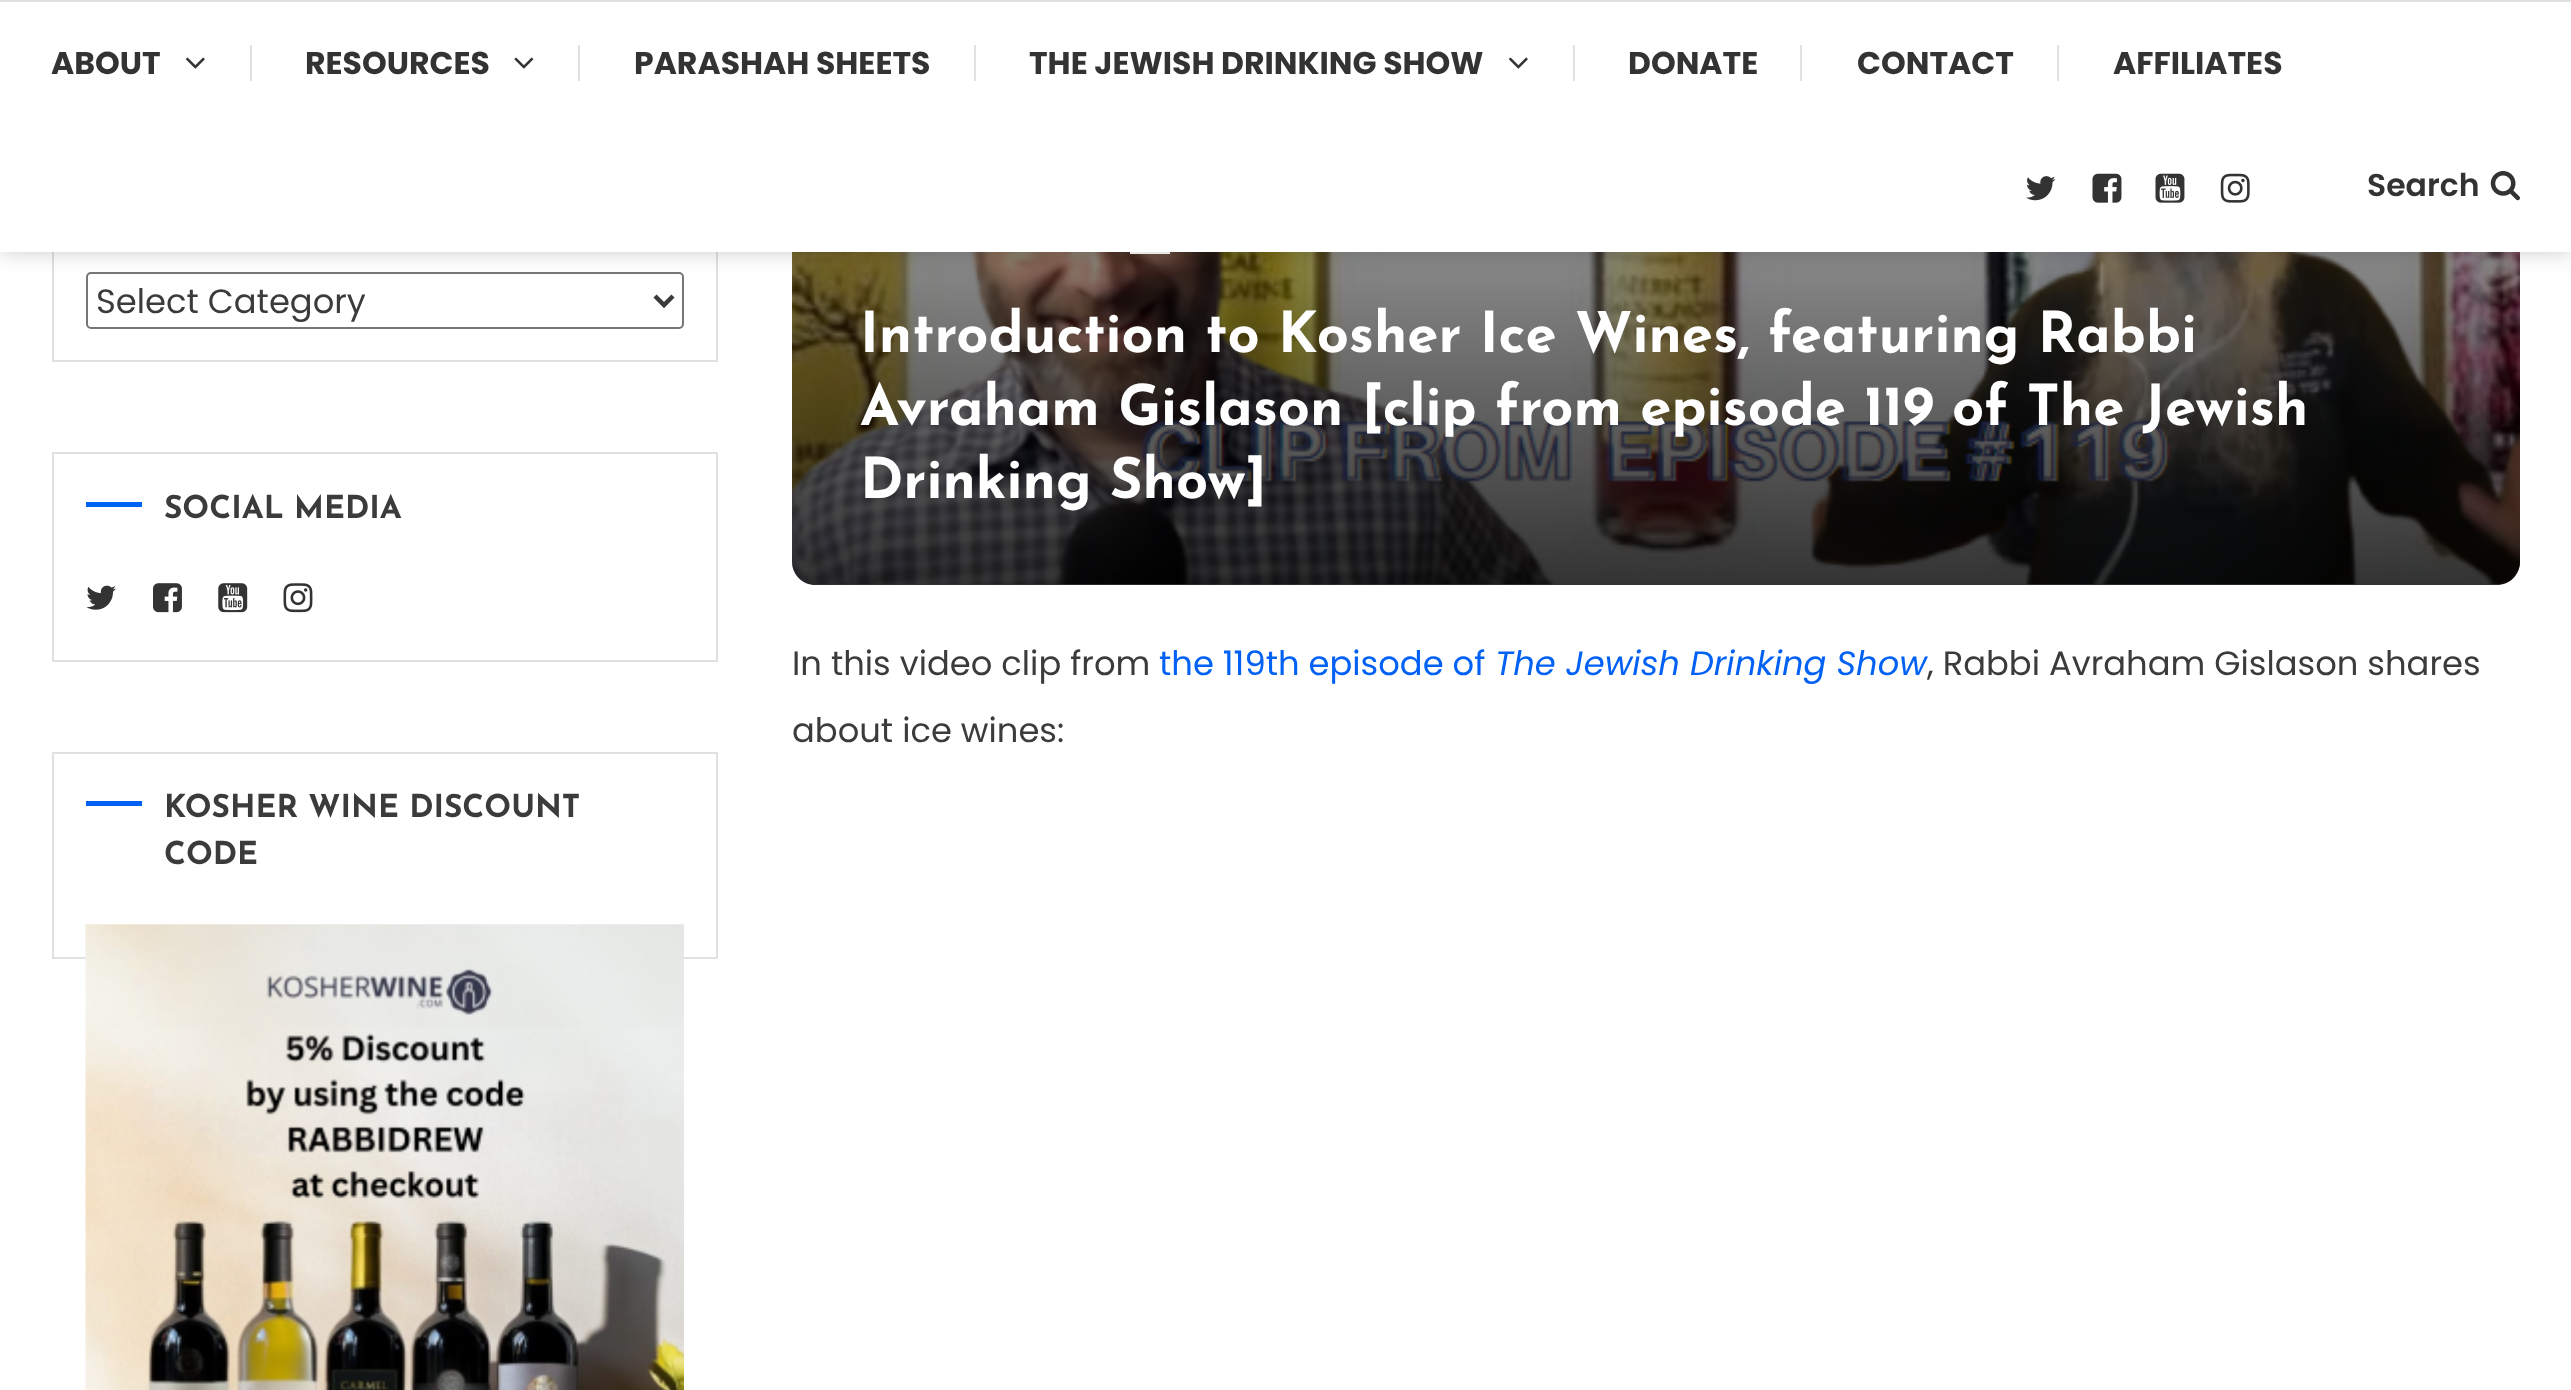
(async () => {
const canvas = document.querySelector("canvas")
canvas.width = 2571
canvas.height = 1390
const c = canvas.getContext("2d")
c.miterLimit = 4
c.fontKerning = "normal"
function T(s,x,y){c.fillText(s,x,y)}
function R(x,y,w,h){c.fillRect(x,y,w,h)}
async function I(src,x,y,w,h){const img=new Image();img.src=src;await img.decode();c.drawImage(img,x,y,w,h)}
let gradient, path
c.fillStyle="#fff"
R(0,0,2571,1390)
c.strokeStyle="#e1e1e1"
c.lineWidth=2
c.strokeRect(53,154,664,207)
c.beginPath()
c.roundRect(87,273,596,55,4)
c.strokeStyle="#767676"
c.stroke()
await I("13.png",792,252,1728,333)
gradient = c.createLinearGradient(1656,-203,1656,585)
gradient.addColorStop(0,"#00000000")
gradient.addColorStop(1,"#000000cc")
c.fillStyle = gradient
path = new Path2D("M792-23h1728v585c0 12.5-10.5 23-23 23h-1682c-12.5 0-23-10.5-23-23z")
c.fill(path)
c.fillStyle="#fff"
R(1130,252,40,2)
c.fillStyle="#00000033"
c.filter="blur(11px)"
c.beginPath()
c.rect(0,0,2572,252)
c.fill()
c.filter="none"
c.fillStyle="#fff"
R(0,2,2571,250)
c.fillStyle="#e1e1e1"
R(0,0,2571,2)
c.font="bold 31.5px Poppins"
c.fillStyle="#333"
T("ABOUT",51,74)
await I("1.png",186,57,19,12)
c.fillStyle="#e1e1e1"
R(250,45,2,36)
c.fillStyle="#333"
T("RESOURCES",305,74)
await I("2.png",514,57,20,12)
c.fillStyle="#e1e1e1"
R(578,45,2,36)
c.fillStyle="#333"
T("PARASHAH SHEETS",634,74)
c.fillStyle="#e1e1e1"
R(974,45,2,36)
c.fillStyle="#333"
T("THE JEWISH DRINKING SHOW",1029,74)
await I("1.png",1509,57,19,12)
c.fillStyle="#e1e1e1"
R(1573,45,2,36)
c.fillStyle="#333"
T("DONATE",1628,74)
c.fillStyle="#e1e1e1"
R(1800,45,2,36)
c.fillStyle="#333"
T("CONTACT",1857,74)
c.fillStyle="#e1e1e1"
R(2057,45,2,36)
c.fillStyle="#333"
T("AFFILIATES",2113,74)
await I("3.png",2026,176,30,25)
await I("4.png",2092,173,30,30)
await I("5.png",2155,173,30,30)
await I("6.png",2220,173,30,30)
c.font="600 31.5px Poppins"
T("Search",2367,196)
await I("7.png",2490,171,30,30)
path = new Path2D("M655 296l9 9l9-9")
c.strokeStyle="#3b3b3b"
c.lineWidth=4.5
c.stroke(path)
c.font="33.75px Poppins"
c.fillStyle="#3b3b3b"
T("Select Category",96,313)
c.strokeStyle="#e1e1e1"
c.lineWidth=2
c.strokeRect(53,453,664,208)
c.fillStyle="#0061f4"
R(86,502,56,5)
c.font="bold 31.5px Josefin Sans"
c.fillStyle="#3b3b3b"
T("SOCIAL MEDIA",164,518)
await I("8.png",86,585,30,25)
await I("9.png",153,583,29,30)
await I("10.png",218,583,30,30)
await I("11.png",283,583,30,30)
c.strokeRect(53,753,664,205)
c.fillStyle="#0061f4"
R(86,801,56,5)
c.fillStyle="#3b3b3b"
T("KOSHER WINE DISCOUNT",164,817)
T("CODE",164,864)
await I("12.png",85,924,599,466)
c.font="bold 56.25px Josefin Sans"
c.fillStyle="#fff"
T("Introduction to Kosher Ice Wines, featuring Rabbi",860,352)
T("Avraham Gislason [clip from episode 119 of The Jewish",860,425)
T("Drinking Show]",860,498)
c.font="33.75px Poppins"
c.fillStyle="#3b3b3b"
T("In this video clip from",792,675)
c.fillStyle="#0061f4"
T("the 119th episode of",1159,675)
c.font="italic 33.75px Poppins"
T("The Jewish Drinking Show",1495,675)
c.font="33.75px Poppins"
c.fillStyle="#3b3b3b"
T(", Rabbi Avraham Gislason shares",1927,675)
T("about ice wines:",792,742)
})()
